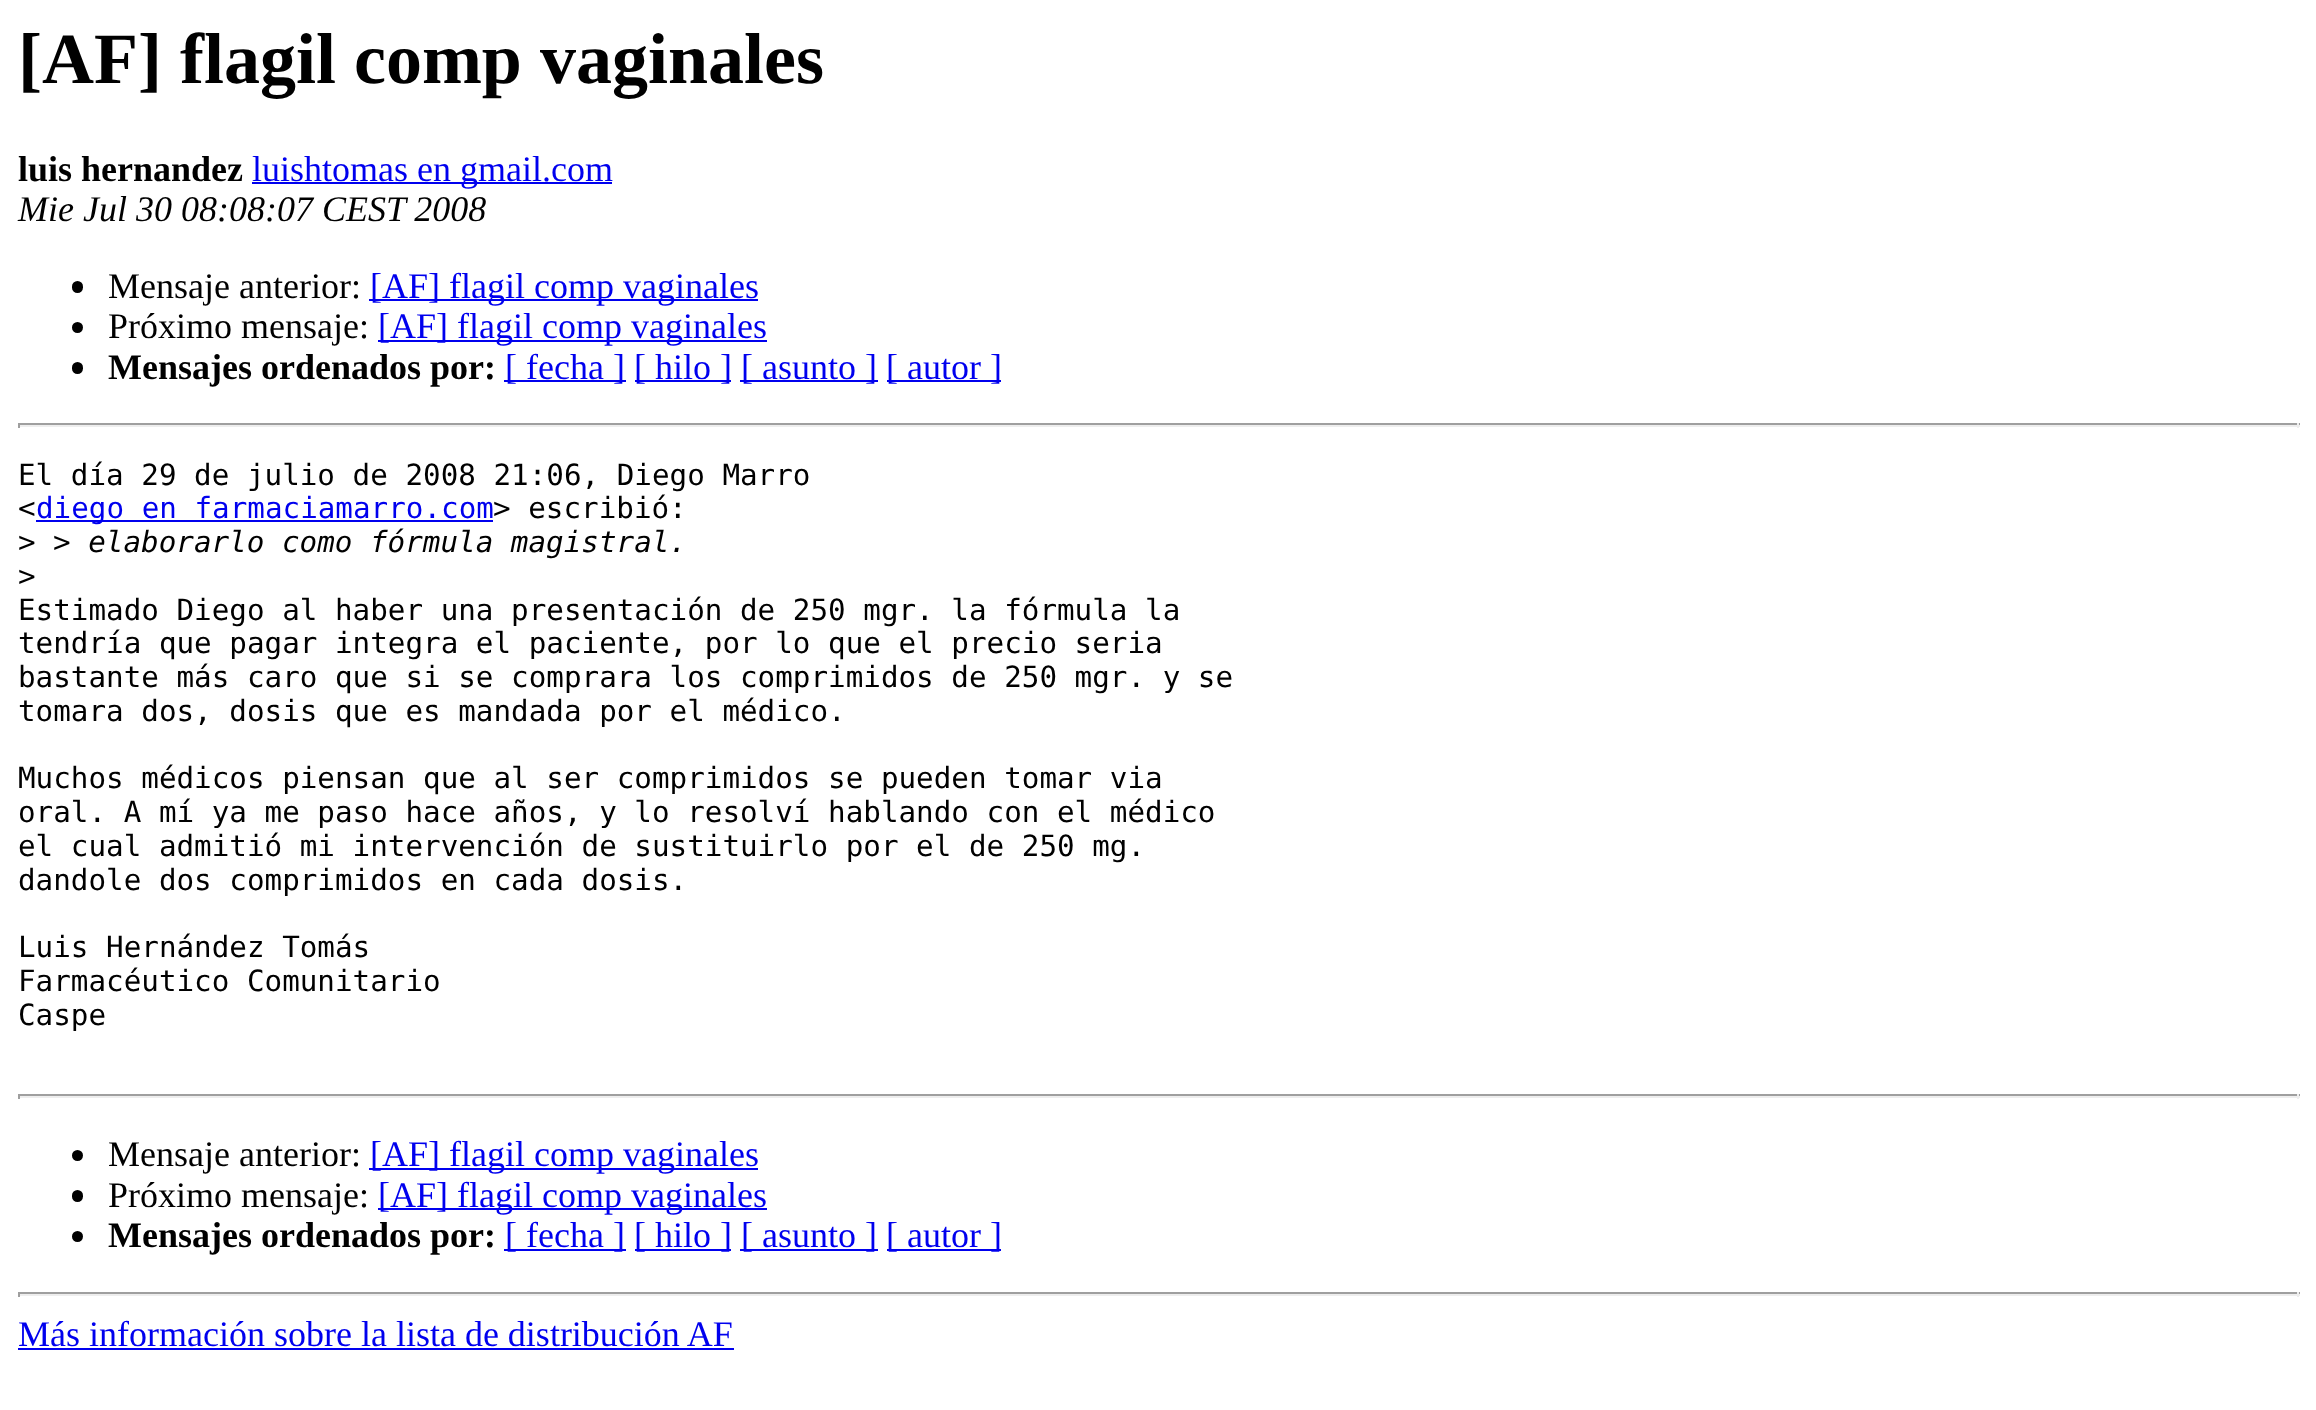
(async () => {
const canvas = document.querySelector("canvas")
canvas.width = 2316
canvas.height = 1410
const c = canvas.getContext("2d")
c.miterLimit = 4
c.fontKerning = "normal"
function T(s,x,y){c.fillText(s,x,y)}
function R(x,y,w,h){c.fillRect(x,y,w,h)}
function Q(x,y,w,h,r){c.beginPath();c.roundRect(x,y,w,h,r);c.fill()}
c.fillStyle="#fff"
R(0,0,2316,1410)
c.font="bold 72px Liberation Serif"
c.fillStyle="#000"
T("[AF] flagil comp vaginales",18,83)
c.font="bold 36px Liberation Serif"
T("luis hernandez",18,181)
c.fillStyle="#00e"
R(252,182,360,2)
c.font="36px Liberation Serif"
T("luishtomas en gmail.com",252,181)
c.font="italic 36px Liberation Serif"
c.fillStyle="#000"
T("Mie Jul 30 08:08:07 CEST 2008",18,221)
Q(72,281,11,12,5.5)
c.font="36px Liberation Serif"
T("Mensaje anterior:",108,298)
c.fillStyle="#00e"
R(369,299,389,2)
T("[AF] flagil comp vaginales",370,298)
c.fillStyle="#000"
c.beginPath()
c.arc(77.5,327.5,5.5,0,7)
c.fill()
T("Próximo mensaje:",108,338)
c.fillStyle="#00e"
R(378,340,389,2)
T("[AF] flagil comp vaginales",378,338)
c.fillStyle="#000"
Q(72,362,11,12,5.5)
c.font="bold 36px Liberation Serif"
T("Mensajes ordenados por:",108,379)
c.fillStyle="#00e"
R(504,380,122,2)
c.font="36px Liberation Serif"
T("[ fecha ]",505,379)
R(635,380,96,2)
T("[ hilo ]",634,379)
R(740,380,138,2)
T("[ asunto ]",741,379)
R(887,380,114,2)
T("[ autor ]",886,379)
c.fillStyle="#9f9f9f"
R(18,423,2282,2)
c.fillStyle="#eee"
R(2297,423,2,5)
R(18,425,2282,2)
c.fillStyle="#9f9f9f"
R(18,423,2,5)
c.font="29.25px DejaVu Sans Mono"
c.fillStyle="#000"
T("El día 29 de julio de 2008 21:06, Diego Marro",18,485)
T("<",18,518)
c.fillStyle="#00e"
R(36,520,457,2)
T("diego en farmaciamarro.com",36,518)
c.fillStyle="#000"
T("> escribió:",493,518)
T(">",18,552)
c.font="italic 29.25px DejaVu Sans Mono"
T("> elaborarlo como fórmula magistral.",53,552)
c.font="29.25px DejaVu Sans Mono"
T(">",18,586)
T("Estimado Diego al haber una presentación de 250 mgr. la fórmula la",18,620)
T("tendría que pagar integra el paciente, por lo que el precio seria",18,653)
T("bastante más caro que si se comprara los comprimidos de 250 mgr. y se",18,687)
T("tomara dos, dosis que es mandada por el médico.",18,721)
T("Muchos médicos piensan que al ser comprimidos se pueden tomar via",18,788)
T("oral. A mí ya me paso hace años, y lo resolví hablando con el médico",18,822)
T("el cual admitió mi intervención de sustituirlo por el de 250 mg.",18,856)
T("dandole dos comprimidos en cada dosis.",18,890)
T("Luis Hernández Tomás",18,957)
T("Farmacéutico Comunitario",18,991)
T("Caspe",18,1025)
c.fillStyle="#9f9f9f"
R(18,1094,2282,2)
c.fillStyle="#eee"
R(2297,1094,2,5)
R(18,1096,2282,2)
c.fillStyle="#9f9f9f"
R(18,1094,2,5)
c.fillStyle="#000"
c.beginPath()
c.arc(77.5,1155.5,5.5,0,7)
c.fill()
c.font="36px Liberation Serif"
T("Mensaje anterior:",108,1166)
c.fillStyle="#00e"
R(369,1168,389,2)
T("[AF] flagil comp vaginales",370,1166)
c.fillStyle="#000"
Q(72,1190,11,12,5.5)
T("Próximo mensaje:",108,1207)
c.fillStyle="#00e"
R(378,1208,389,2)
T("[AF] flagil comp vaginales",378,1207)
c.fillStyle="#000"
c.beginPath()
c.arc(77.5,1236.5,5.5,0,7)
c.fill()
c.font="bold 36px Liberation Serif"
T("Mensajes ordenados por:",108,1247)
c.fillStyle="#00e"
R(504,1249,122,2)
c.font="36px Liberation Serif"
T("[ fecha ]",505,1247)
R(635,1249,96,2)
T("[ hilo ]",634,1247)
R(740,1249,138,2)
T("[ asunto ]",741,1247)
R(887,1249,114,2)
T("[ autor ]",886,1247)
c.fillStyle="#9f9f9f"
R(18,1292,2282,2)
c.fillStyle="#eee"
R(2297,1292,2,5)
R(18,1294,2282,2)
c.fillStyle="#9f9f9f"
R(18,1292,2,5)
c.fillStyle="#00e"
T("Más información sobre la lista de distribución AF",18,1346)
R(18,1348,716,2)
})()
